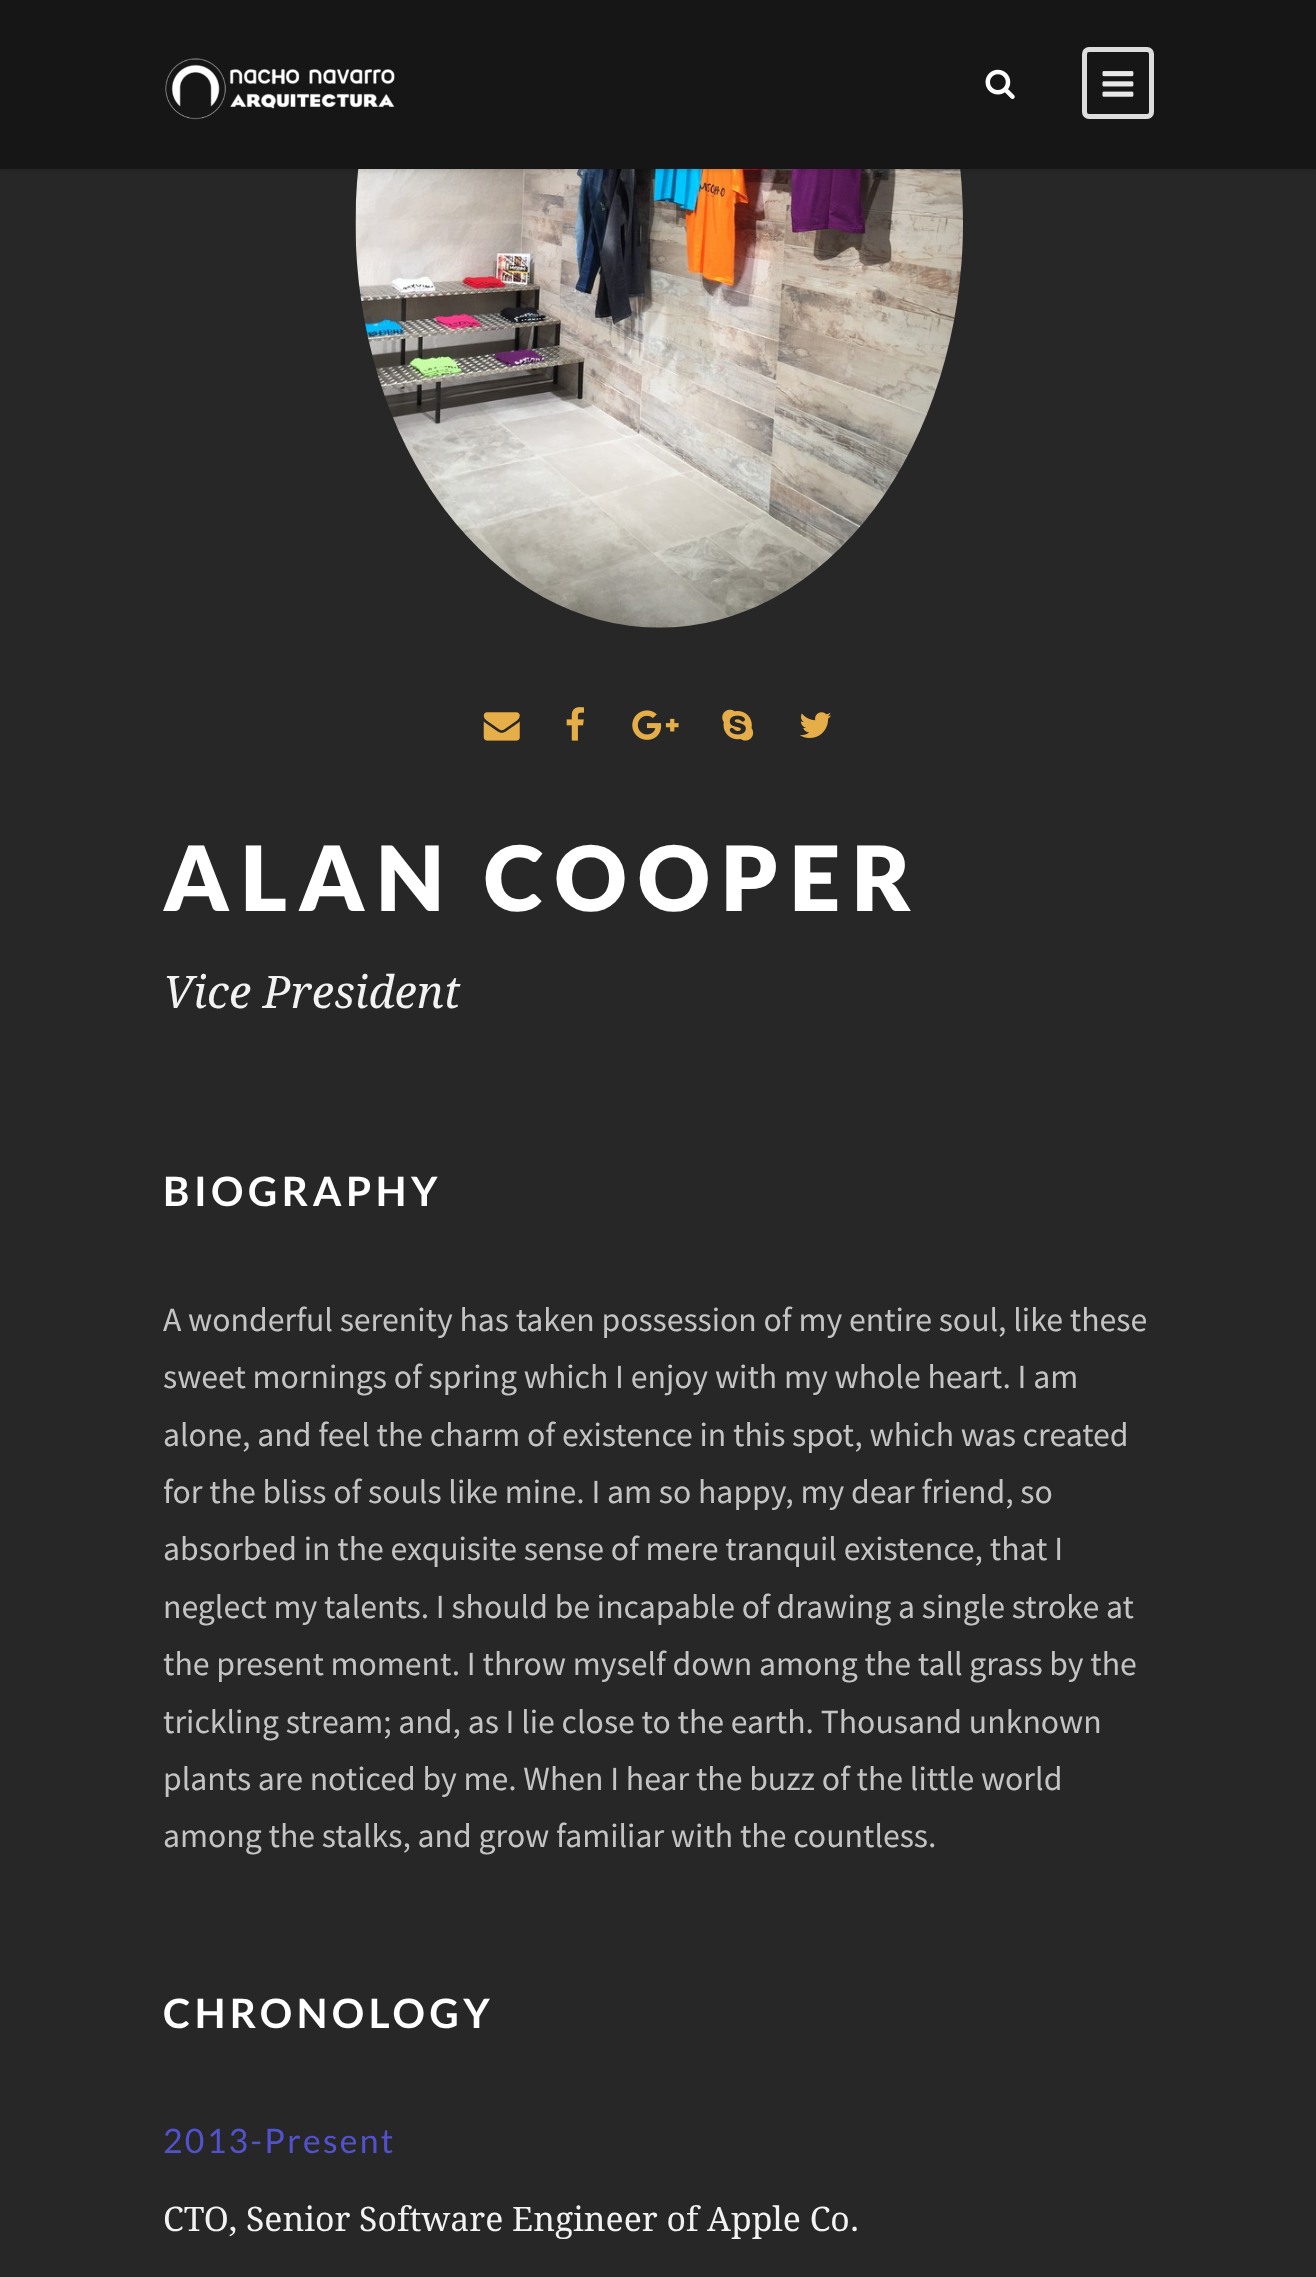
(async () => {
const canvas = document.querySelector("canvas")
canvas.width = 1316
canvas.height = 2277
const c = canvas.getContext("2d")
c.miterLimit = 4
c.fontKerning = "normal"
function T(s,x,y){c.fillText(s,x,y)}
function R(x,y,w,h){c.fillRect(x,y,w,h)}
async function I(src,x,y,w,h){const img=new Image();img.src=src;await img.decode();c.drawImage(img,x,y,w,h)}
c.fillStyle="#272727"
R(0,0,1316,2277)
await I("4.png",355,169,608,459)
c.fillStyle="#0000001a"
c.filter="blur(2px)"
c.beginPath()
c.rect(0,2,1316,169)
c.fill()
c.filter="none"
c.fillStyle="#161616"
R(0,0,1316,169)
await I("1.png",165,58,230,62)
await I("2.png",985,69,30,30)
c.beginPath()
c.roundRect(1084.5,49.5,67,67,4.5)
c.strokeStyle="#ddd"
c.lineWidth=5
c.stroke()
await I("3.png",1102,71,32,26)
await I("5.png",483,712,37,29)
await I("6.png",566,707,18,34)
await I("7.png",632,710,47,30)
await I("8.png",722,709,32,32)
await I("9.png",799,712,33,26)
c.letterSpacing="11.25px"
c.font="900 90px Lato"
c.fillStyle="#fff"
T("ALAN COOPER",163,911)
c.letterSpacing="0px"
c.font="italic 45px Droid Serif"
c.fillStyle="#f2f2f2"
T("Vice President",163,1008)
c.letterSpacing="4.5px"
c.font="bold 40.5px Lato"
c.fillStyle="#fff"
T("BIOGRAPHY",163,1206)
c.letterSpacing="0px"
c.font="33.75px Source Sans Pro"
c.fillStyle="#c4c4c4"
T("A wonderful serenity has taken possession of my entire soul, like these",163,1331)
T("sweet mornings of spring which I enjoy with my whole heart. I am",163,1388)
T("alone, and feel the charm of existence in this spot, which was created",163,1446)
T("for the bliss of souls like mine. I am so happy, my dear friend, so",163,1503)
T("absorbed in the exquisite sense of mere tranquil existence, that I",163,1560)
T("neglect my talents. I should be incapable of drawing a single stroke at",163,1618)
T("the present moment. I throw myself down among the tall grass by the",163,1675)
T("trickling stream; and, as I lie close to the earth. Thousand unknown",163,1733)
T("plants are noticed by me. When I hear the buzz of the little world",163,1790)
T("among the stalks, and grow familiar with the countless.",163,1847)
c.letterSpacing="4.5px"
c.font="bold 40.5px Lato"
c.fillStyle="#fff"
T("CHRONOLOGY",163,2028)
c.letterSpacing="2.25px"
c.font="33.75px Lato"
c.fillStyle="#5252ce"
T("2013-Present",163,2153)
c.letterSpacing="0px"
c.font="33.75px Droid Serif"
c.fillStyle="#f2f2f2"
T("CTO, Senior Software Engineer of Apple Co.",163,2231)
})()
